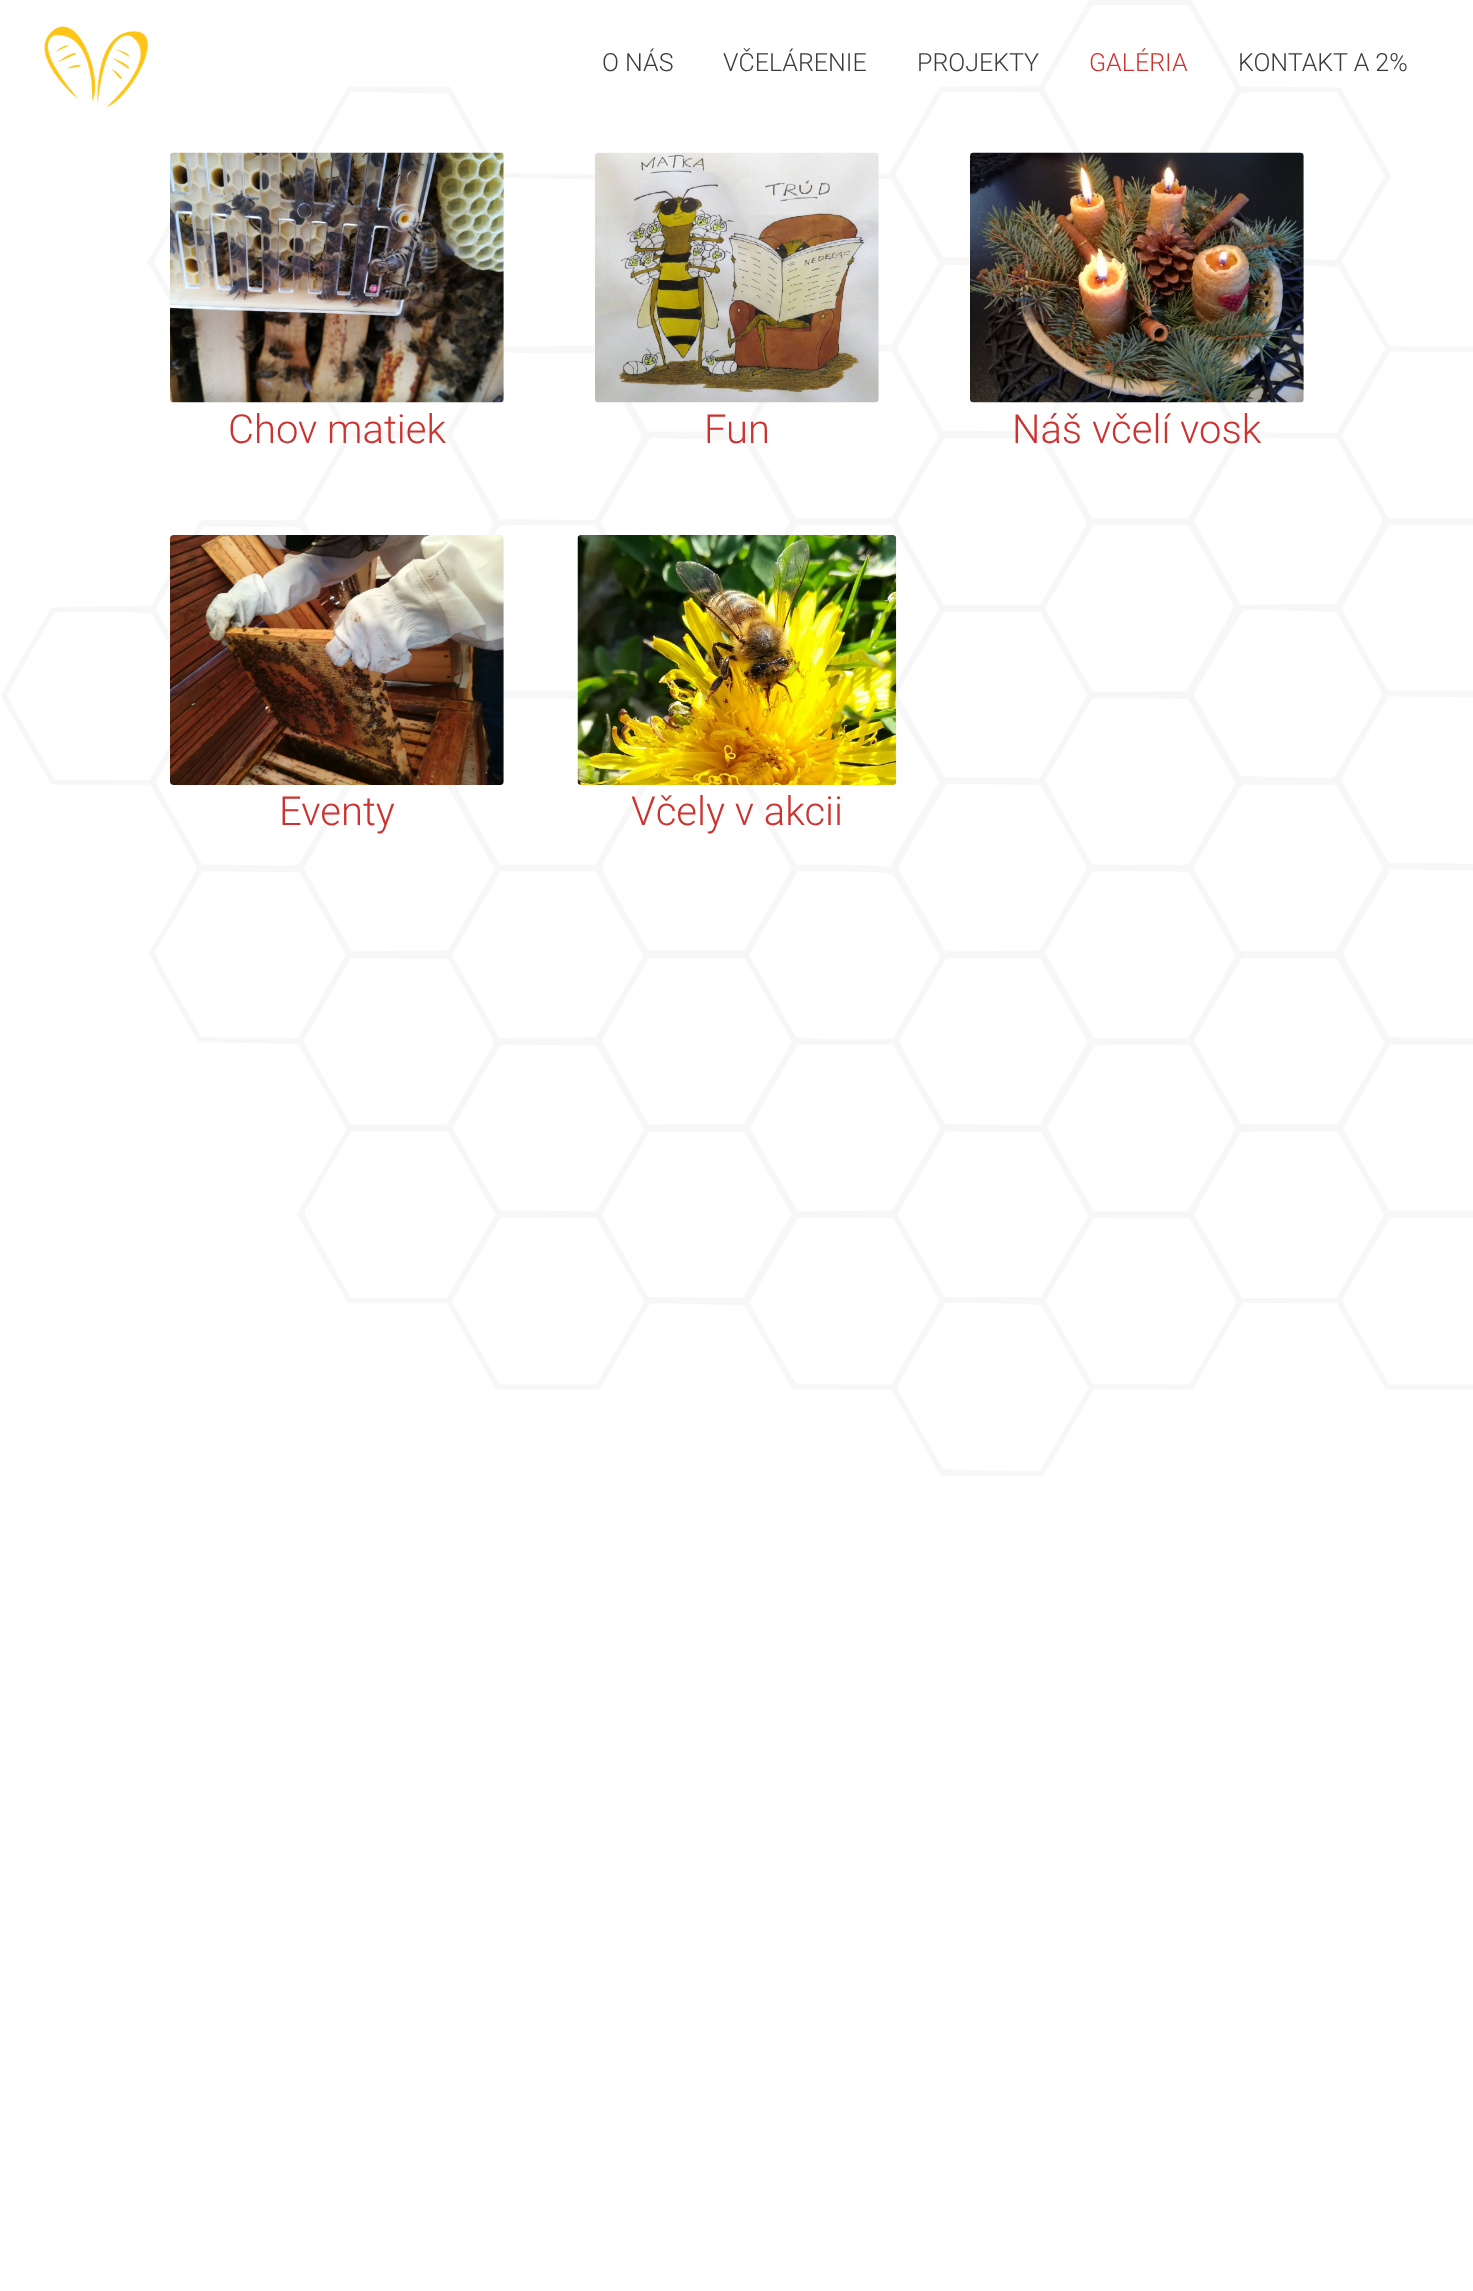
(async () => {
const canvas = document.querySelector("canvas")
canvas.width = 1473
canvas.height = 2291
const c = canvas.getContext("2d")
c.miterLimit = 4
c.fontKerning = "normal"
function T(s,x,y){c.fillText(s,x,y)}
function R(x,y,w,h){c.fillRect(x,y,w,h)}
async function I(src,x,y,w,h){const img=new Image();img.src=src;await img.decode();c.drawImage(img,x,y,w,h)}
c.fillStyle="#fff"
R(0,0,1473,2291)
await I("1.png",1,0,1472,1476)
await I("2.png",44,26,105,84)
c.font="300 25px Roboto"
c.fillStyle="#3b3b3b"
T("O NÁS",602,71)
T("VČELÁRENIE",723,71)
T("PROJEKTY",917,71)
c.fillStyle="#cb3330"
T("GALÉRIA",1089,71)
c.fillStyle="#3b3b3b"
T("KONTAKT A 2%",1238,71)
await I("3.png",170,152,334,251)
c.font="300 40px Roboto"
c.fillStyle="#cb3330"
T("Chov matiek",228,443)
await I("4.png",595,152,284,251)
T("Fun",704,443)
await I("5.png",970,152,334,251)
T("Náš včelí vosk",1012,443)
await I("6.png",170,535,334,250)
T("Eventy",279,825)
await I("7.png",577,535,320,250)
T("Včely v akcii",631,825)
})()
